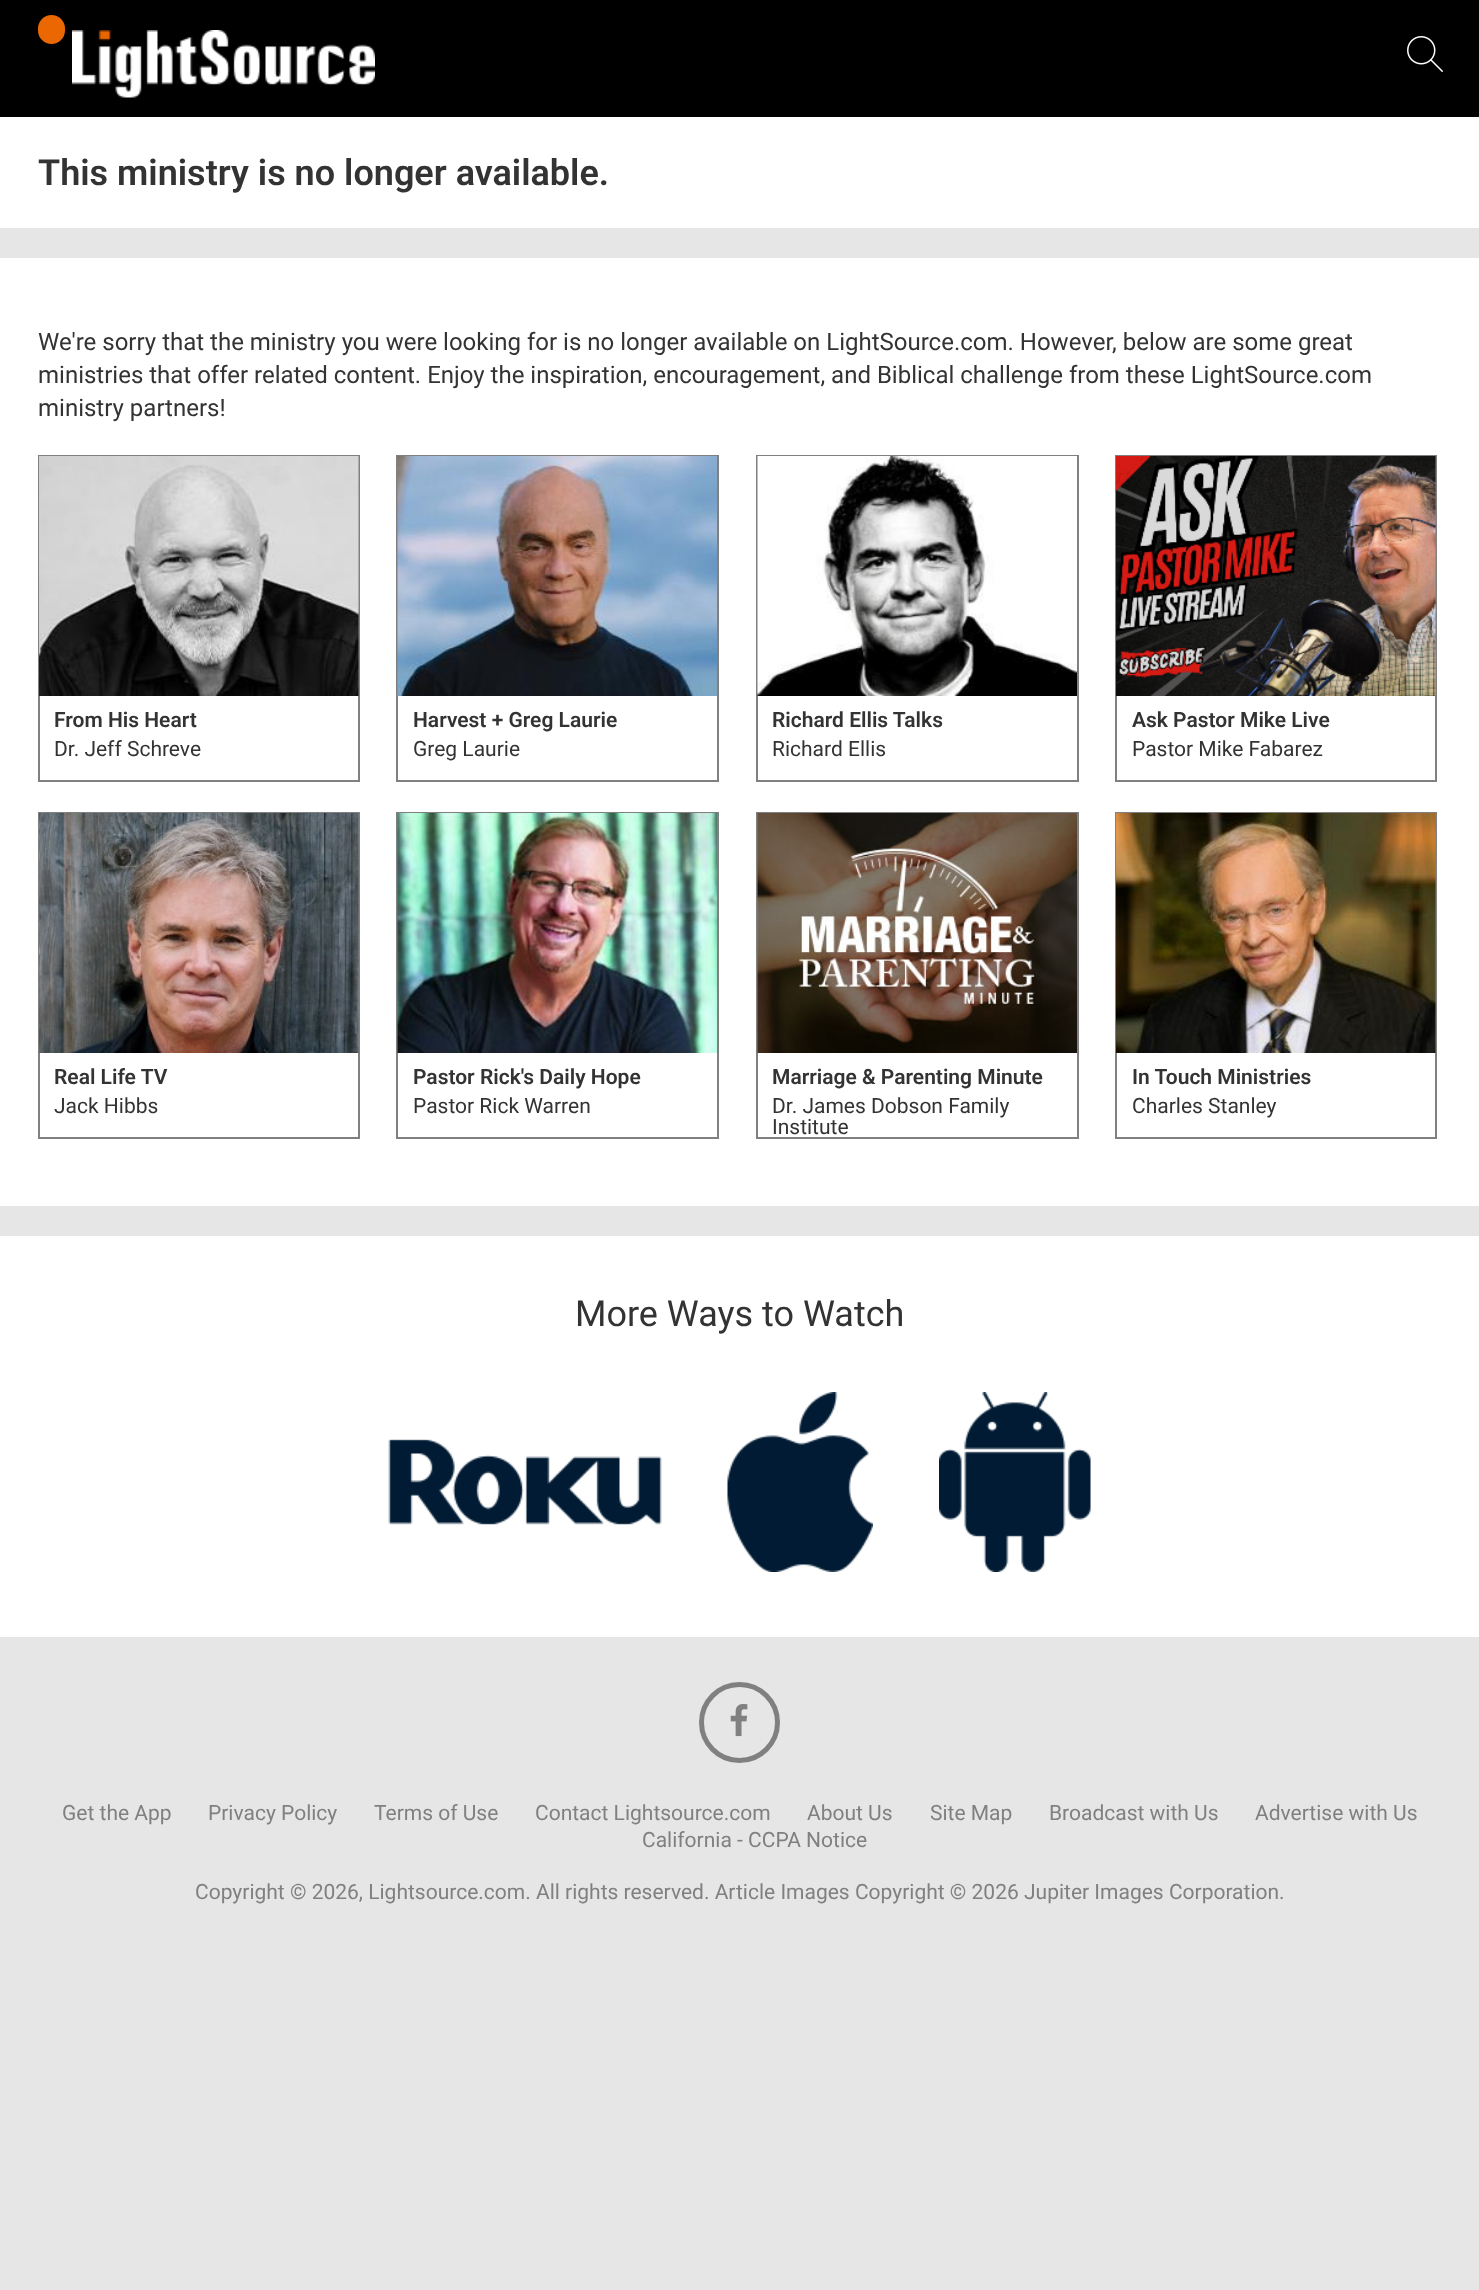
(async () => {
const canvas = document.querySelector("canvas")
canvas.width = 1479
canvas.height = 2290
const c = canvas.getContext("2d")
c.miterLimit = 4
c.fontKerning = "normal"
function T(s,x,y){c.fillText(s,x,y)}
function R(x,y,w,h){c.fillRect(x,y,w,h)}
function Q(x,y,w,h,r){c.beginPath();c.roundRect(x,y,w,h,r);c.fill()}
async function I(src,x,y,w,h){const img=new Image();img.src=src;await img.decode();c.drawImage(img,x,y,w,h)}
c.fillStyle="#e6e6e6"
R(0,0,1479,2290)
c.fillStyle="#000"
R(0,0,1479,117)
c.fillStyle="#eb6701"
Q(38,15,27,29,13.5)
await I("1.png",72,30,303,68)
await I("2.png",1407,36,36,36)
c.fillStyle="#fff"
R(0,117,1479,111)
c.font="600 36px Roboto"
c.fillStyle="#333"
T("This ministry is no longer available.",38,185)
c.fillStyle="#fff"
R(0,258,1479,948)
c.font="24px Roboto"
c.fillStyle="#333"
T("We're sorry that the ministry you were looking for is no longer available on LightSource.com. However, below are some great",38,350)
T("ministries that offer related content. Enjoy the inspiration, encouragement, and Biblical challenge from these LightSource.com",38,383)
T("ministry partners!",38,416)
c.strokeStyle="#808080"
c.lineWidth=2
c.strokeRect(39,456,320,325)
await I("3.png",39,456,320,240)
c.font="600 21px Roboto"
T("From His Heart",54,727)
c.font="21px Roboto"
T("Dr. Jeff Schreve",54,756)
c.strokeRect(397,456,321,325)
await I("4.png",397,456,320,240)
c.font="600 21px Roboto"
T("Harvest + Greg Laurie",413,727)
c.font="21px Roboto"
T("Greg Laurie",413,756)
c.strokeRect(757,456,321,325)
await I("5.png",757,456,320,240)
c.font="600 21px Roboto"
T("Richard Ellis Talks",772,727)
c.font="21px Roboto"
T("Richard Ellis",772,756)
c.strokeRect(1116,456,320,325)
await I("6.png",1116,456,320,240)
c.font="600 21px Roboto"
T("Ask Pastor Mike Live",1132,727)
c.font="21px Roboto"
T("Pastor Mike Fabarez",1132,756)
c.strokeRect(39,813,320,325)
await I("7.png",39,813,320,240)
c.font="600 21px Roboto"
T("Real Life TV",54,1084)
c.font="21px Roboto"
T("Jack Hibbs",54,1113)
c.strokeRect(397,813,321,325)
await I("8.png",397,813,320,240)
c.font="600 21px Roboto"
T("Pastor Rick's Daily Hope",413,1084)
c.font="21px Roboto"
T("Pastor Rick Warren",413,1113)
c.strokeRect(757,813,321,325)
await I("9.png",757,813,320,240)
c.font="600 21px Roboto"
T("Marriage & Parenting Minute",772,1084)
c.font="21px Roboto"
T("Dr. James Dobson Family",772,1113)
T("Institute",772,1134)
c.strokeRect(1116,813,320,325)
await I("10.png",1116,813,320,240)
c.font="600 21px Roboto"
T("In Touch Ministries",1132,1084)
c.font="21px Roboto"
T("Charles Stanley",1132,1113)
c.fillStyle="#fff"
R(0,1236,1479,401)
c.font="36px Roboto"
c.fillStyle="#333"
T("More Ways to Watch",575,1326)
await I("11.png",388,1439,274,86)
await I("12.png",727,1392,146,180)
await I("13.png",939,1392,152,180)
c.beginPath()
c.arc(739.5,1722.5,38,0,7)
c.lineWidth=5
c.stroke()
await I("14.png",730,1704,18,33)
c.font="21px Roboto"
c.fillStyle="#808080"
T("Get the App",62,1820)
T("Privacy Policy",208,1820)
T("Terms of Use",374,1820)
T("Contact Lightsource.com",535,1820)
T("About Us",807,1820)
T("Site Map",930,1820)
T("Broadcast with Us",1049,1820)
T("Advertise with Us",1255,1820)
T("California - CCPA Notice",642,1847)
T("Copyright © 2026, Lightsource.com. All rights reserved. Article Images Copyright © 2026 Jupiter Images Corporation.",195,1899)
})()
